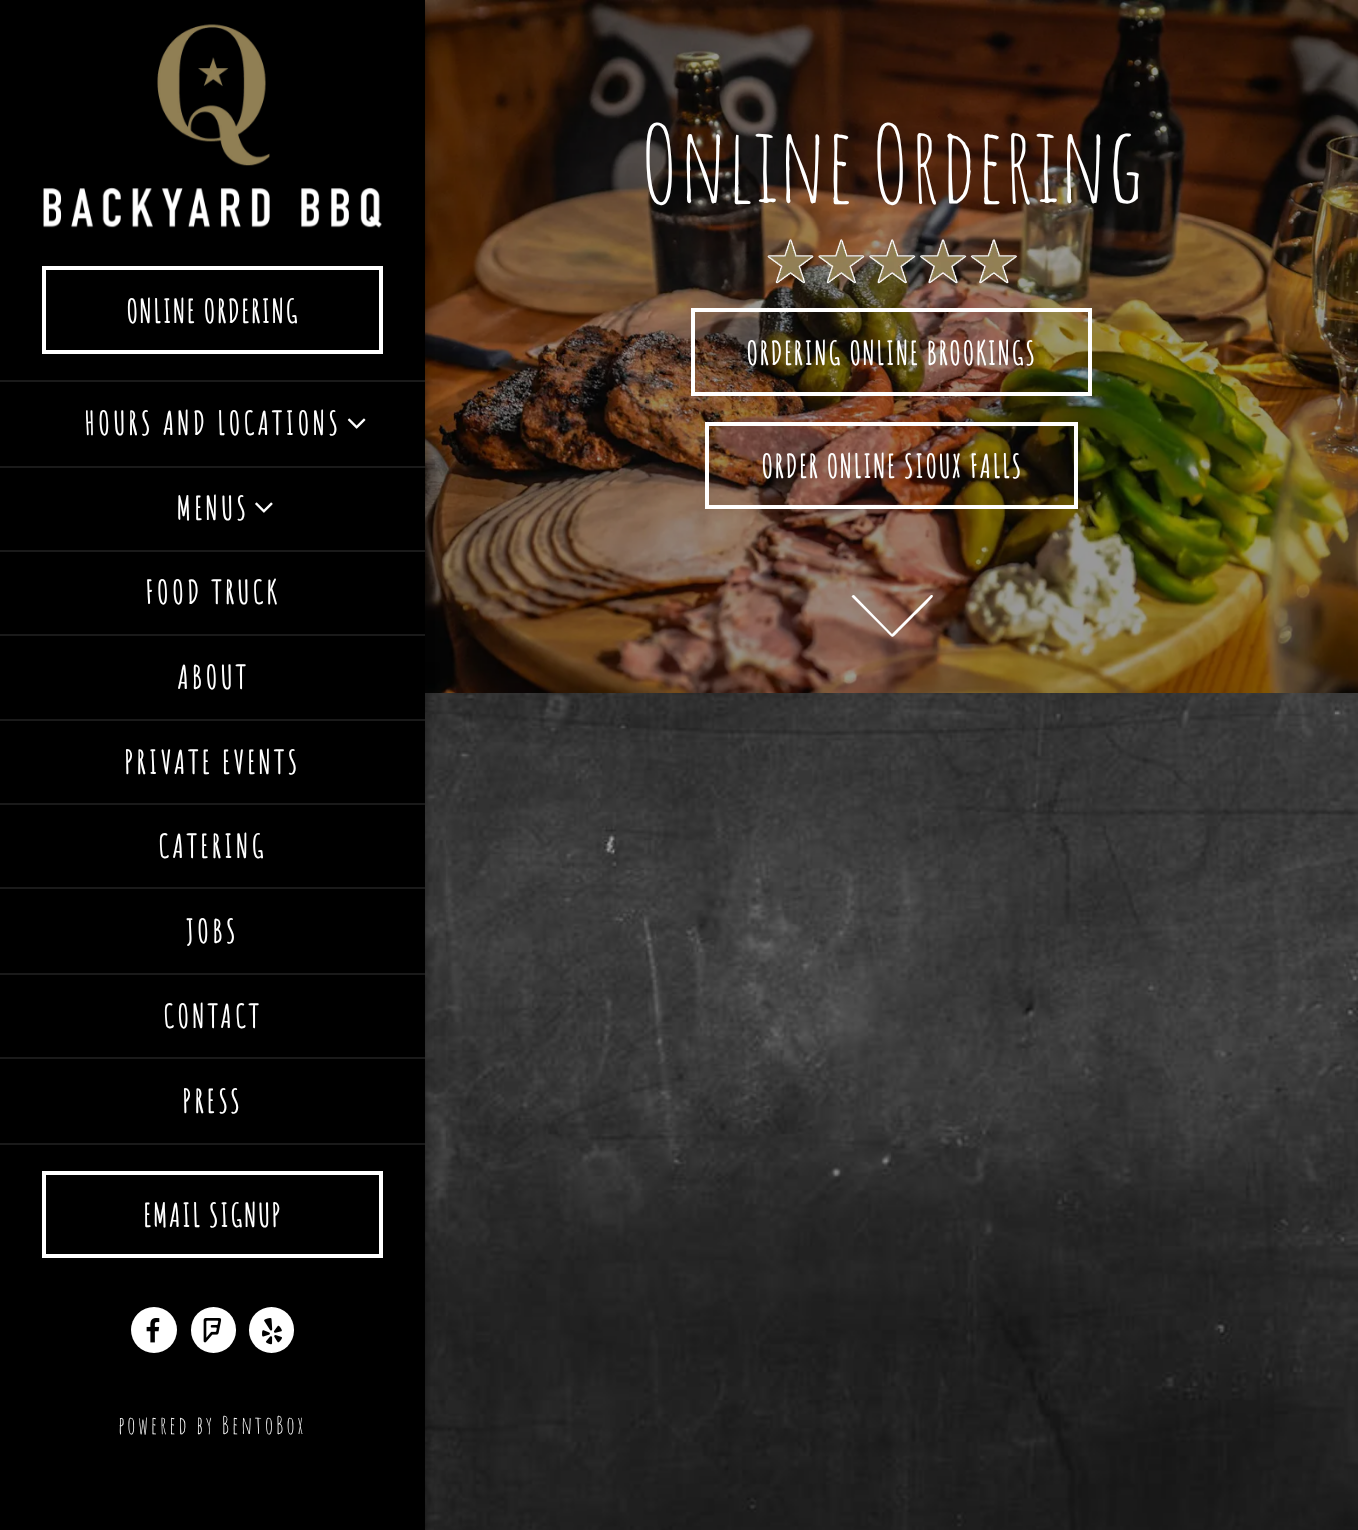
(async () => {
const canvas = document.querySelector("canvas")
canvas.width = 1358
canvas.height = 1530
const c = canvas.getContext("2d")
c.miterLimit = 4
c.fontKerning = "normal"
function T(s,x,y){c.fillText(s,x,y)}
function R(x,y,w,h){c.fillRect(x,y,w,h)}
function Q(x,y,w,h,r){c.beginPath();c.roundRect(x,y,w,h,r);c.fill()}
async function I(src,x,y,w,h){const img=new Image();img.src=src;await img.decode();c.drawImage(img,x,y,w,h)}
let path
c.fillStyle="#fff"
R(0,0,1358,1530)
await I("1.png",425,693,933,837)
await I("8.png",425,0,933,693)
c.fillStyle="#00000066"
c.filter="blur(4.5px)"
c.beginPath()
c.rect(0,4,425,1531)
c.fill()
c.filter="none"
c.fillStyle="#000"
R(0,0,425,1530)
await I("2.png",43,24,339,204)
c.strokeStyle="#fff"
c.lineWidth=4
c.strokeRect(44,268,337,84)
c.letterSpacing="1.75px"
c.font="bold 31.5px Amatic SC"
c.fillStyle="#fff"
T("ONLINE ORDERING",126,323)
c.fillStyle="#1a1a1a"
R(0,380,425,2)
R(0,466,425,2)
c.letterSpacing="3.5px"
c.fillStyle="#fff"
T("HOURS AND LOCATIONS",84,435)
await I("3.png",347,418,19,11)
c.fillStyle="#1a1a1a"
R(0,550,425,2)
c.fillStyle="#fff"
T("MENUS",176,520)
await I("4.png",255,502,18,11)
c.fillStyle="#1a1a1a"
R(0,634,425,2)
c.fillStyle="#fff"
T("FOOD TRUCK",145,604)
c.fillStyle="#1a1a1a"
R(0,719,425,2)
c.fillStyle="#fff"
T("ABOUT",177,689)
c.fillStyle="#1a1a1a"
R(0,803,425,2)
c.fillStyle="#fff"
T("PRIVATE EVENTS",124,774)
c.fillStyle="#1a1a1a"
R(0,887,425,2)
c.fillStyle="#fff"
T("CATERING",158,858)
c.fillStyle="#1a1a1a"
R(0,973,425,2)
c.fillStyle="#fff"
T("JOBS",186,943)
c.fillStyle="#1a1a1a"
R(0,1057,425,2)
c.fillStyle="#fff"
T("CONTACT",163,1028)
c.fillStyle="#1a1a1a"
R(0,1143,425,2)
c.fillStyle="#fff"
T("PRESS",182,1113)
c.strokeRect(44,1173,337,83)
c.letterSpacing="1.75px"
T("EMAIL SIGNUP",143,1227)
c.beginPath()
c.arc(154,1330,23,0,7)
c.fill()
await I("5.png",146,1318,14,25)
Q(191,1307,45,46,22.5)
await I("6.png",203,1318,19,25)
Q(249,1307,45,46,22.5)
await I("7.png",262,1318,20,27)
c.letterSpacing="2.6px"
c.font="24.5px Amatic SC"
T("powered by BentoBox",118,1434)
c.letterSpacing="0px"
c.font="105px Amatic SC"
T("Online Ordering",640,203)
await I("9.png",767,239,251,45)
c.strokeRect(693,310,397,84)
c.letterSpacing="1.75px"
c.font="bold 31.5px Amatic SC"
T("ORDERING ONLINE BROOKINGS",746,365)
c.strokeRect(707,424,369,83)
T("ORDER ONLINE SIOUX FALLS",761,478)
path = new Path2D("M933 596c0 2-18 19-20 21l-13 13c-9 9-6 9-15 0l-33-33c-1-1 1-2 2-2l38 39l39-39c1 0 2 0 2 1z")
c.fill(path)
})()
